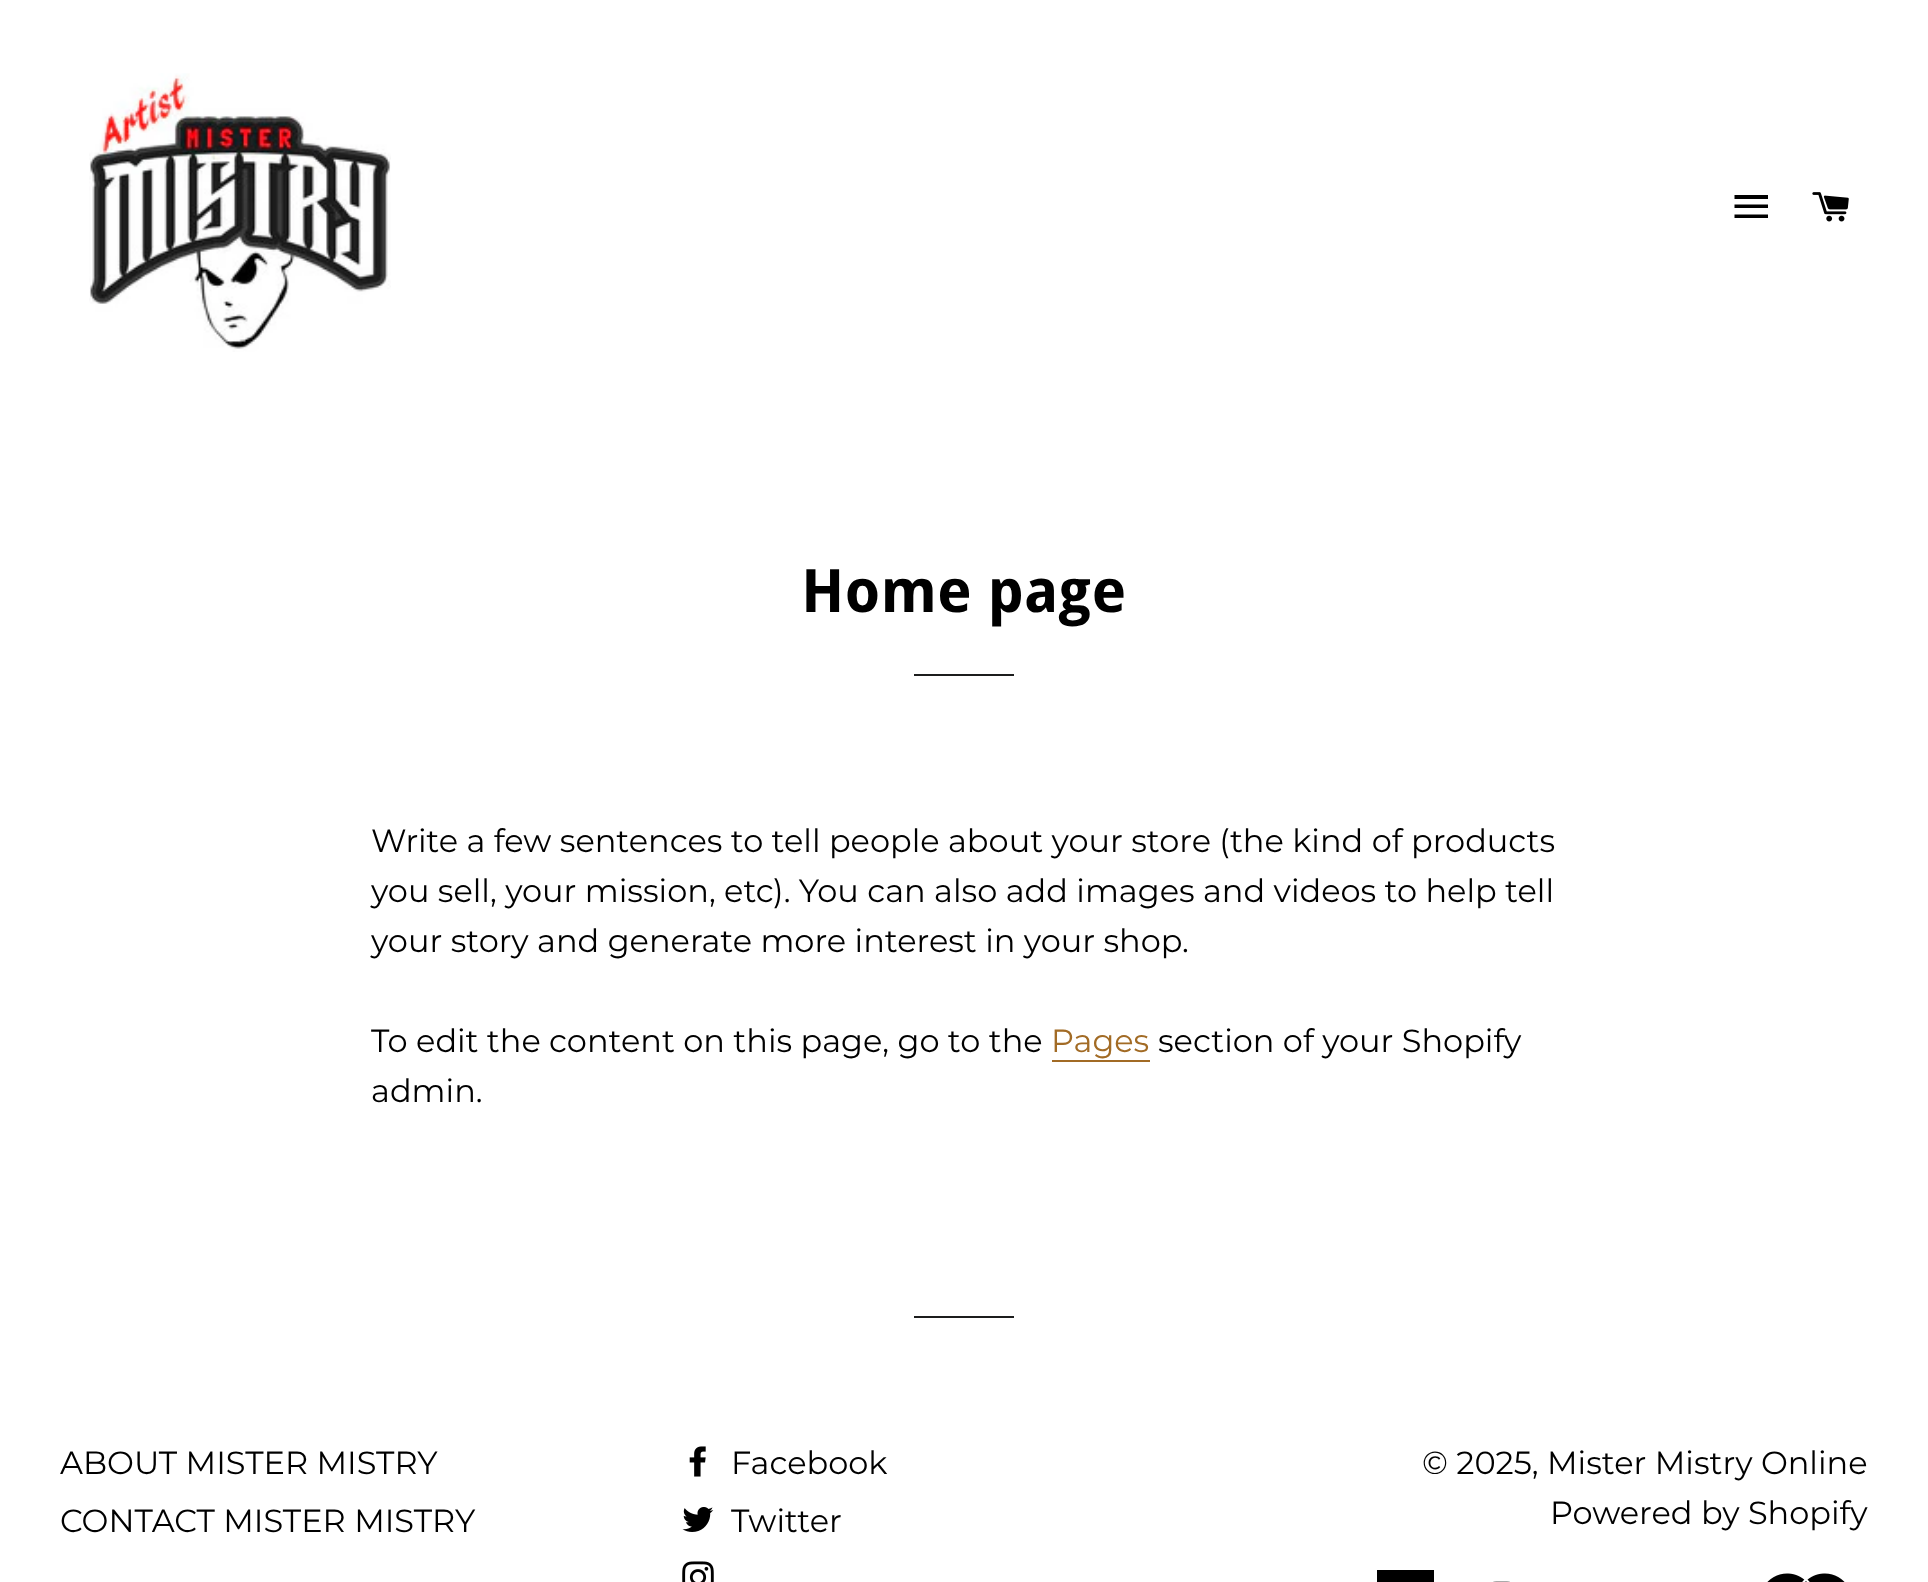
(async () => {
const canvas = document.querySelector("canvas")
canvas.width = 1928
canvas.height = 1582
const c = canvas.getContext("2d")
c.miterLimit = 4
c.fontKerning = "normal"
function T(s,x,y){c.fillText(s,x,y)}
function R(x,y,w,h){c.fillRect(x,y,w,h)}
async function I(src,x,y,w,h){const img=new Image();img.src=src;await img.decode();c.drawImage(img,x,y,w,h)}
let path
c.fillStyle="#fff"
R(0,0,1928,1582)
await I("1.png",89,73,302,279)
c.fillStyle="#000"
path = new Path2D("M1734.5 195h33.5v4h-33.5zm0 9.5h33.5v3.5h-33.5zm0 10h33.5v3.5h-33.5z")
c.fill(path)
await I("2.png",1812,192,37,30)
c.font="bold 60px Droid Sans"
T("Home page",801,612)
c.fillStyle="#1c1d1d"
R(914,674,100,2)
c.font="100 32px Montserrat"
c.fillStyle="#000"
T("Write a few sentences to tell people about your store (the kind of products",371,852)
T("you sell, your mission, etc). You can also add images and videos to help tell",371,902)
T("your story and generate more interest in your shop.",371,952)
T("To edit the content on this page, go to the",371,1052)
c.fillStyle="#a26b25"
T("Pages",1051,1052)
R(1052,1060,98,2)
c.fillStyle="#000"
T("section of your Shopify",1158,1052)
T("admin.",371,1102)
c.fillStyle="#1c1d1d"
R(914,1316,100,2)
c.fillStyle="#000"
T("ABOUT MISTER MISTRY",60,1474)
T("CONTACT MISTER MISTRY",60,1532)
await I("3.png",689,1446,17,31)
T("Facebook",731,1474)
await I("4.png",682,1507,32,25)
T("Twitter",731,1532)
await I("5.png",682,1561,32,21)
T("© 2025, Mister Mistry Online",1422,1474)
T("Powered by Shopify",1550,1524)
R(1377,1570,57,12)
await I("6.png",1493,1581,17,1)
await I("7.png",1767,1573,78,9)
})()
